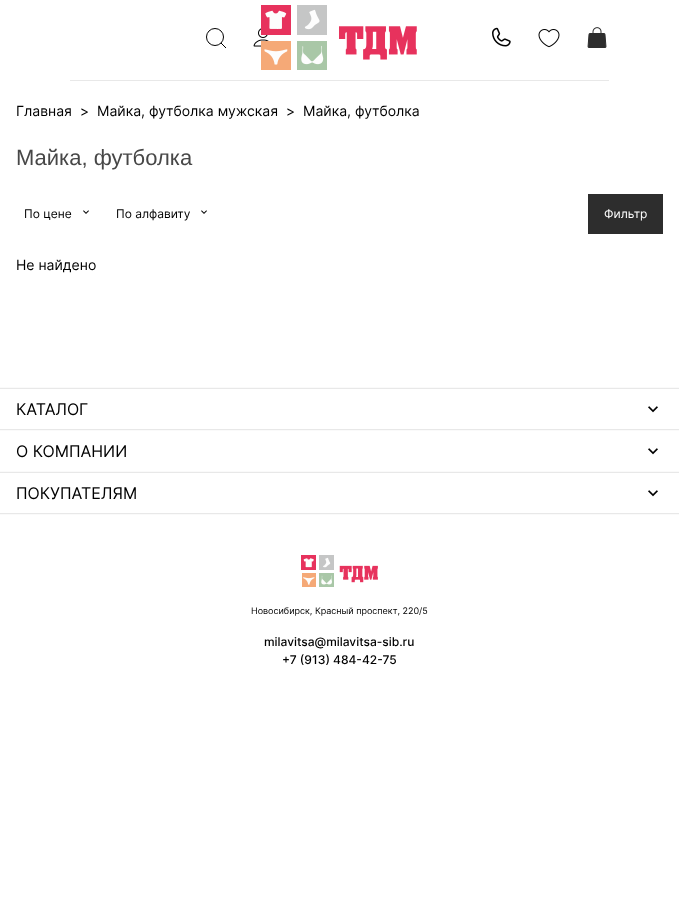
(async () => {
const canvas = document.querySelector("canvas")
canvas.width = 679
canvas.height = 905
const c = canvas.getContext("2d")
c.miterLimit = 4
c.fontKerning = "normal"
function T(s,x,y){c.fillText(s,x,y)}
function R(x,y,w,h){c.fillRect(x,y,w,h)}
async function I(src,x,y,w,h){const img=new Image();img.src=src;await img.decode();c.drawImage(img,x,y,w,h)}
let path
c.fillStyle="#fff"
R(0,0,679,905)
c.fillStyle="#e8e8e8"
R(70,80,539,1)
c.beginPath()
c.arc(215,37,8.5,0,7)
c.strokeStyle="#000"
c.stroke()
path = new Path2D("M221 43l5 5")
c.stroke(path)
await I("1.png",253,28,16,19)
await I("2.png",261,5,156,65)
await I("3.png",492,27,19,20)
await I("4.png",538,29,22,19)
await I("5.png",587,27,20,21)
c.font="14px Inter"
c.fillStyle="#000"
T("Главная",16,116)
T(">",80,116)
T("Майка, футболка мужская",97,116)
T(">",286,116)
T("Майка, футболка",303,116)
c.font="22px Liberation Sans"
c.fillStyle="#474747"
T("Майка, футболка",16,165)
c.font="12px Inter"
c.fillStyle="#000"
T("По цене",24,218)
await I("6.png",83,210,6,4)
T("По алфавиту",116,218)
await I("6.png",201,210,6,4)
c.fillStyle="#2d2d2d"
R(588,194,75,40)
c.fillStyle="#fff"
T("Фильтр",604,218)
c.font="14px Inter"
c.fillStyle="#000"
T("Не найдено",16,270)
c.fillStyle="#fafafa"
R(0,387,679,1)
c.fillStyle="#e8e8e8"
R(0,388,679,1)
R(0,429,679,1)
c.font="16px Inter"
c.fillStyle="#000"
T("КАТАЛОГ",16,415)
await I("7.png",648,406,10,7)
c.fillStyle="#fafafa"
R(0,430,679,1)
c.fillStyle="#000"
T("О КОМПАНИИ",16,457)
await I("7.png",648,448,10,7)
c.fillStyle="#fafafa"
R(0,471,679,1)
R(0,514,679,1)
c.fillStyle="#e8e8e8"
R(0,472,679,1)
R(0,513,679,1)
c.fillStyle="#000"
T("ПОКУПАТЕЛЯМ",16,499)
await I("7.png",648,490,10,7)
await I("8.png",301,555,77,32)
c.font="9px Inter"
T("Новосибирск, Красный проспект, 220/5",251,614)
c.font="500 12px Inter"
T("milavitsa@milavitsa-sib.ru",264,646)
T("+7 (913) 484-42-75",282,664)
})()
